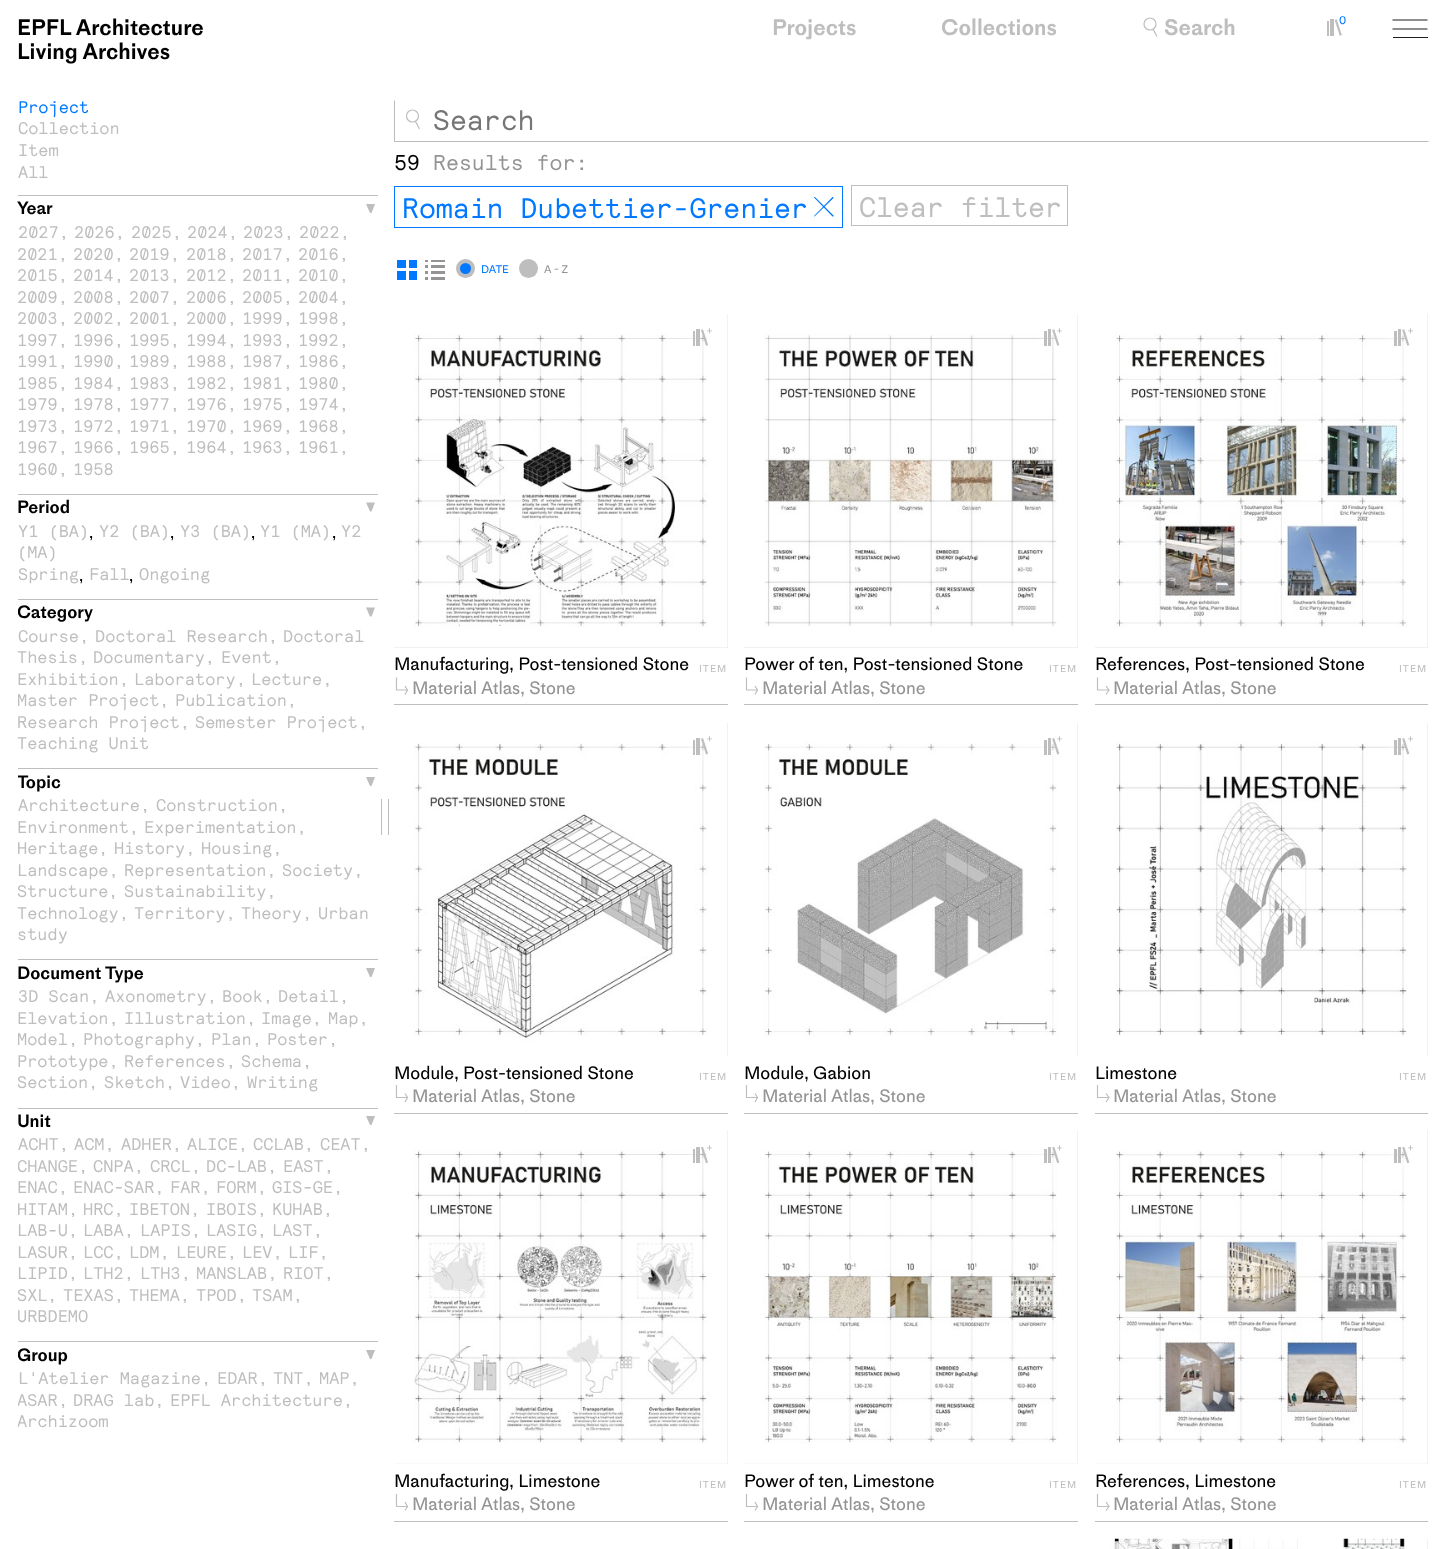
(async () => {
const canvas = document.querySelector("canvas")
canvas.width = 1445
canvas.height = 1549
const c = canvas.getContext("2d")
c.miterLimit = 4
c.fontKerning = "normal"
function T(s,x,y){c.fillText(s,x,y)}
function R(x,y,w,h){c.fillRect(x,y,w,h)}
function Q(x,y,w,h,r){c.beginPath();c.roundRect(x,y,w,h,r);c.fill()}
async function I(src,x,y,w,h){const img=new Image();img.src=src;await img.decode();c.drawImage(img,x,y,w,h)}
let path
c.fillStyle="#fff"
R(0,0,1445,1549)
c.font="600 22.5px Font"
c.fillStyle="#000"
T("EPFL Architecture",17,35)
T("Living Archives",17,59)
c.fillStyle="#bebebe"
T("Projects",772,35)
T("Collections",941,35)
path = new Path2D("M1157 36.5l-4-7.5")
c.strokeStyle="#bebebe"
c.lineWidth=1.2
c.lineJoin="bevel"
c.stroke(path)
c.beginPath()
c.arc(1150,24,6,0,7)
c.stroke()
T("Search",1164,35)
await I("1.png",1327,19,15,17)
c.font="11px Font"
c.fillStyle="#0078ff"
T("0",1339,24)
path = new Path2D("M1392.5 20h35m-35 9h35")
c.strokeStyle="#1e1e1e"
c.lineJoin="miter"
c.stroke(path)
c.fillStyle="#1e1e1e"
R(1393,37,35,1)
c.font="16.9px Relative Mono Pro"
c.fillStyle="#0078ff"
T("Project",18,113)
c.fillStyle="#bebebe"
T("Collection",18,134)
T("Item",18,156)
T("All",18,178)
R(18,195,360,1)
c.font="600 18px Font"
c.fillStyle="#000"
T("Year",17,214)
c.fillStyle="#bebebe"
path = new Path2D("M366 204h9l-3.5 9h-1.5z")
c.fill(path)
c.font="16.9px Relative Mono Pro"
T("2027,",18,238)
T("2026,",74,238)
T("2025,",131,238)
T("2024,",187,238)
T("2023,",243,238)
T("2022,",299,238)
T("2021,",17,260)
T("2020,",73,260)
T("2019,",129,260)
T("2018,",186,260)
T("2017,",242,260)
T("2016,",298,260)
T("2015,",17,281)
T("2014,",73,281)
T("2013,",129,281)
T("2012,",186,281)
T("2011,",242,281)
T("2010,",298,281)
T("2009,",17,303)
T("2008,",73,303)
T("2007,",129,303)
T("2006,",186,303)
T("2005,",242,303)
T("2004,",298,303)
T("2003,",17,324)
T("2002,",73,324)
T("2001,",129,324)
T("2000,",186,324)
T("1999,",242,324)
T("1998,",298,324)
T("1997,",17,346)
T("1996,",73,346)
T("1995,",129,346)
T("1994,",186,346)
T("1993,",242,346)
T("1992,",298,346)
T("1991,",17,367)
T("1990,",73,367)
T("1989,",129,367)
T("1988,",186,367)
T("1987,",242,367)
T("1986,",298,367)
T("1985,",17,389)
T("1984,",73,389)
T("1983,",129,389)
T("1982,",186,389)
T("1981,",242,389)
T("1980,",298,389)
T("1979,",17,410)
T("1978,",73,410)
T("1977,",129,410)
T("1976,",186,410)
T("1975,",242,410)
T("1974,",298,410)
T("1973,",17,432)
T("1972,",73,432)
T("1971,",129,432)
T("1970,",186,432)
T("1969,",242,432)
T("1968,",298,432)
T("1967,",17,453)
T("1966,",73,453)
T("1965,",129,453)
T("1964,",186,453)
T("1963,",242,453)
T("1961,",298,453)
T("1960,",17,475)
T("1958",73,475)
R(18,494,360,1)
c.font="600 18px Font"
c.fillStyle="#000"
T("Period",17,513)
c.fillStyle="#bebebe"
path = new Path2D("M366 502.5h9l-3.5 9h-1.5z")
c.fill(path)
c.font="16.9px Relative Mono Pro"
T("Y1 (BA)",18,537)
T("Y2 (BA)",99,537)
T("Y3 (BA)",180,537)
T("Y1 (MA)",260,537)
T("Y2",341,537)
c.font="16.9px Font"
c.fillStyle="#000"
T(",",89,538)
T(",",170,538)
T(",",251,538)
T(",",332,538)
c.font="16.9px Relative Mono Pro"
c.fillStyle="#bebebe"
T("(MA)",17,558)
T("Spring",18,580)
c.font="16.9px Font"
c.fillStyle="#000"
T(",",79,581)
c.font="16.9px Relative Mono Pro"
c.fillStyle="#bebebe"
T("Fall",89,580)
c.font="16.9px Font"
c.fillStyle="#000"
T(",",129,581)
c.font="16.9px Relative Mono Pro"
c.fillStyle="#bebebe"
T("Ongoing",139,580)
R(18,599,360,1)
c.save()
c.beginPath()
c.rect(18,599,360,156)
c.clip()
c.font="600 18px Font"
c.fillStyle="#000"
T("Category",17,618)
c.restore()
path = new Path2D("M366 607.5h9l-3.5 9h-1.5z")
c.fill(path)
T("Course,",18,642)
T("Doctoral Research,",95,642)
T("Doctoral",283,642)
T("Thesis,",17,663)
T("Documentary,",93,663)
T("Event,",221,663)
T("Exhibition,",17,685)
T("Laboratory,",134,685)
T("Lecture,",251,685)
c.save()
c.beginPath()
c.rect(18,599,360,156)
c.clip()
T("Master Project",17,706)
c.restore()
T(",",159,706)
T("Publication,",175,706)
T("Research Project,",17,728)
T("Semester Project,",195,728)
T("Teaching Unit",17,749)
R(18,768,360,1)
c.save()
c.beginPath()
c.rect(18,768,360,177)
c.clip()
c.font="600 18px Font"
c.fillStyle="#000"
T("Topic",17,788)
c.restore()
path = new Path2D("M366 777h9l-3.5 9h-1.5z")
c.fill(path)
T("Architecture,",18,811)
T("Construction,",156,811)
T("Environment,",17,833)
T("Experimentation,",144,833)
c.save()
c.beginPath()
c.rect(18,768,360,177)
c.clip()
T("Heritage",17,854)
c.restore()
T(",",98,854)
T("History,",114,854)
T("Housing,",201,854)
T("Landscape,",17,876)
T("Representation,",124,876)
T("Society,",282,876)
c.save()
c.beginPath()
c.rect(18,768,360,177)
c.clip()
T("Structure",17,897)
c.restore()
T(",",108,897)
T("Sustainability,",124,897)
T("Technology,",17,919)
T("Territory,",134,919)
T("Theory,",241,919)
T("Urban",318,919)
T("study",17,940)
R(18,959,360,1)
c.font="600 18px Font"
c.fillStyle="#000"
T("Document Type",17,979)
c.fillStyle="#bebebe"
path = new Path2D("M366 968h9l-3.5 9h-1.5z")
c.fill(path)
c.font="16.9px Relative Mono Pro"
T("3D Scan,",18,1002)
T("Axonometry,",105,1002)
T("Book,",222,1002)
T("Detail,",278,1002)
T("Elevation,",17,1024)
T("Illustration,",124,1024)
T("Image,",261,1024)
T("Map,",328,1024)
c.save()
c.beginPath()
c.rect(18,959,360,135)
c.clip()
T("Model",17,1045)
c.restore()
T(",",68,1045)
T("Photography,",83,1045)
T("Plan,",211,1045)
T("Poster,",267,1045)
T("Prototype,",17,1067)
T("References,",124,1067)
T("Schema,",241,1067)
c.save()
c.beginPath()
c.rect(18,959,360,135)
c.clip()
T("Section",17,1088)
c.restore()
T(",",88,1088)
T("Sketch,",104,1088)
T("Video,",180,1088)
T("Writing",247,1088)
R(18,1108,360,1)
c.font="600 18px Font"
c.fillStyle="#000"
T("Unit",17,1127)
c.fillStyle="#bebebe"
path = new Path2D("M366 1116h9l-3.5 9h-1.5z")
c.fill(path)
c.font="16.9px Relative Mono Pro"
T("ACHT,",18,1150)
T("ACM,",74,1150)
T("ADHER,",121,1150)
T("ALICE,",187,1150)
T("CCLAB,",253,1150)
T("CEAT,",320,1150)
c.save()
c.beginPath()
c.rect(18,1108,360,220)
c.clip()
T("CHANGE",17,1172)
c.restore()
T(",",78,1172)
T("CNPA,",93,1172)
T("CRCL,",150,1172)
T("DC-LAB,",206,1172)
T("EAST,",283,1172)
T("ENAC,",17,1193)
T("ENAC-SAR,",73,1193)
T("FAR,",170,1193)
T("FORM,",216,1193)
T("GIS-GE,",272,1193)
c.save()
c.beginPath()
c.rect(18,1108,360,220)
c.clip()
T("HITAM",17,1215)
c.restore()
T(",",68,1215)
T("HRC,",83,1215)
T("IBETON,",129,1215)
T("IBOIS,",206,1215)
T("KUHAB,",272,1215)
T("LAB-U,",17,1236)
T("LABA,",83,1236)
T("LAPIS,",140,1236)
T("LASIG,",206,1236)
T("LAST,",272,1236)
T("LASUR,",17,1258)
T("LCC,",83,1258)
T("LDM,",129,1258)
T("LEURE,",176,1258)
T("LEV,",242,1258)
T("LIF,",288,1258)
T("LIPID,",17,1279)
T("LTH2,",83,1279)
T("LTH3,",140,1279)
T("MANSLAB,",196,1279)
T("RIOT,",283,1279)
c.save()
c.beginPath()
c.rect(18,1108,360,220)
c.clip()
T("SXL",17,1301)
c.restore()
T(",",47,1301)
T("TEXAS,",63,1301)
T("THEMA,",129,1301)
T("TPOD,",196,1301)
T("TSAM,",252,1301)
T("URBDEMO",17,1322)
R(18,1341,360,1)
c.save()
c.beginPath()
c.rect(18,1341,360,92)
c.clip()
c.font="600 18px Font"
c.fillStyle="#000"
T("Group",17,1361)
c.restore()
path = new Path2D("M366 1350h9l-3.5 9h-1.5z")
c.fill(path)
T("L'Atelier Magazine,",18,1384)
T("EDAR,",217,1384)
T("TNT,",273,1384)
T("MAP,",319,1384)
c.save()
c.beginPath()
c.rect(18,1341,360,92)
c.clip()
T("ASAR",17,1406)
c.restore()
T(",",58,1406)
T("DRAG lab,",73,1406)
T("EPFL Architecture,",170,1406)
c.save()
c.beginPath()
c.rect(18,1341,360,92)
c.clip()
T("Archizoom",17,1427)
c.restore()
R(388,799,1,36)
R(381,799,1,36)
path = new Path2D("M419.5 129l-4-7.5")
c.strokeStyle="#bebebe"
c.lineJoin="bevel"
c.stroke(path)
c.beginPath()
c.arc(412.5,116,6,0,7)
c.stroke()
c.fillStyle="#bbb"
path = new Path2D("M1429 142h-1035l1-1h1033z")
c.fill(path)
path = new Path2D("M394 142v-42l1 1v40z")
c.fill(path)
c.font="28.1px Relative Mono Pro"
c.fillStyle="#757575"
T("Search",433,130)
c.font="21.5px Relative Mono Pro"
c.fillStyle="#000"
T("59",394,170)
c.fillStyle="#949494"
T("Results for:",433,170)
c.strokeStyle="#0078ff"
c.lineWidth=1
c.lineJoin="miter"
c.strokeRect(394.5,186.5,448,41)
c.font="28.1px Relative Mono Pro"
c.fillStyle="#0078ff"
T("Romain Dubettier-Grenier",402,218)
path = new Path2D("M815 197l18.5 18.5c.5 .5 0 1-1 1l-18.5-19c0-.5 1-.5 1-.5z")
c.fill(path)
path = new Path2D("M814.5 215.5l18-18.5c.5 0 1.5 .5 1 1l-19 18.5c-.5 0-.5-.5 0-1z")
c.fill(path)
c.strokeStyle="#bebebe"
c.strokeRect(851.5,185.5,216,40)
c.fillStyle="#bebebe"
T("Clear filter",859,217)
c.fillStyle="#0078ff"
R(397,260,9,8)
R(409,260,8,8)
R(397,271,9,9)
R(409,271,8,9)
await I("2.png",425,260,20,20)
c.fillStyle="#bebebe"
c.beginPath()
c.arc(465.5,268.5,9.5,0,7)
c.fill()
c.fillStyle="#0078ff"
c.beginPath()
c.arc(465.5,268.5,5.5,0,7)
c.fill()
c.font="11px Font"
T("DATE",481,273)
c.fillStyle="#bebebe"
c.beginPath()
c.arc(528.5,268.5,9.5,0,7)
c.fill()
c.fillStyle="#949494"
T("A - Z",544,273)
c.fillStyle="#bebebe"
R(394,704,334,1)
c.fillStyle="#e5e5e5"
R(394,314,334,334)
await I("3.png",394,314,334,334)
c.fillStyle="#ffffff33"
Q(689,324,27,26,2)
c.beginPath()
c.roundRect(687.5,322.5,30,29,3.5)
c.strokeStyle="#ffffff33"
c.lineWidth=3
c.stroke()
await I("4.png",693,329,15,17)
c.fillStyle="#bebebe"
T("+",706,334)
c.font="18px Font"
c.fillStyle="#000"
T("Manufacturing, Post-tensioned Stone",394,670)
c.letterSpacing="1px"
c.font="10px Font"
c.fillStyle="#bebebe"
T("ITEM",699,672)
path = new Path2D("M396.5 677.5v12.5h10.5m-2-4l2.5 4l-2.5 4.5")
c.strokeStyle="#bebebe"
c.lineWidth=1.2
c.stroke(path)
c.letterSpacing="0px"
c.font="18px Font"
c.fillStyle="#949494"
T("Material Atlas, Stone",412,694)
c.fillStyle="#bebebe"
R(744,704,334,1)
c.fillStyle="#e5e5e5"
R(744,314,334,334)
await I("5.png",744,314,334,334)
c.fillStyle="#ffffff33"
Q(1040,324,26,26,2)
c.beginPath()
c.roundRect(1039.5,322.5,28,29,3.5)
c.strokeStyle="#ffffff33"
c.lineWidth=3
c.stroke()
await I("6.png",1044,329,16,17)
c.font="11px Font"
c.fillStyle="#bebebe"
T("+",1056,334)
c.font="18px Font"
c.fillStyle="#000"
T("Power of ten, Post-tensioned Stone",744,670)
c.letterSpacing="1px"
c.font="10px Font"
c.fillStyle="#bebebe"
T("ITEM",1049,672)
path = new Path2D("M746.5 677.5v12.5h10.5m-2-4l2.5 4l-2.5 4.5")
c.strokeStyle="#bebebe"
c.lineWidth=1.2
c.stroke(path)
c.letterSpacing="0px"
c.font="18px Font"
c.fillStyle="#949494"
T("Material Atlas, Stone",762,694)
c.fillStyle="#bebebe"
R(1095,704,333,1)
c.fillStyle="#e5e5e5"
R(1095,314,333,334)
await I("7.png",1095,314,333,334)
c.fillStyle="#ffffff33"
Q(1390,324,26,26,2)
c.beginPath()
c.roundRect(1389.5,322.5,28,29,3.5)
c.strokeStyle="#ffffff33"
c.lineWidth=3
c.stroke()
await I("8.png",1394,329,16,17)
c.font="11px Font"
c.fillStyle="#bebebe"
T("+",1407,334)
c.font="18px Font"
c.fillStyle="#000"
T("References, Post-tensioned Stone",1095,670)
c.letterSpacing="1px"
c.font="10px Font"
c.fillStyle="#bebebe"
T("ITEM",1399,672)
path = new Path2D("M1097.5 677.5v12.5h11m-2.5-4l3 4l-3 4.5")
c.strokeStyle="#bebebe"
c.lineWidth=1.2
c.stroke(path)
c.letterSpacing="0px"
c.font="18px Font"
c.fillStyle="#949494"
T("Material Atlas, Stone",1113,694)
c.fillStyle="#bebebe"
R(394,1113,334,1)
c.fillStyle="#e5e5e5"
R(727,723,1,333)
await I("9.png",394,723,334,333)
c.fillStyle="#ffffff33"
Q(689,733,27,26,2)
c.beginPath()
c.roundRect(687.5,731.5,30,28,3.5)
c.strokeStyle="#ffffff33"
c.lineWidth=3
c.stroke()
await I("10.png",693,738,15,17)
c.font="11px Font"
c.fillStyle="#bebebe"
T("+",706,742)
c.font="18px Font"
c.fillStyle="#000"
T("Module, Post-tensioned Stone",394,1079)
c.letterSpacing="1px"
c.font="10px Font"
c.fillStyle="#bebebe"
T("ITEM",699,1080)
path = new Path2D("M396.5 1085v12.5h10.5m-2-4l2.5 4l-2.5 4.5")
c.strokeStyle="#bebebe"
c.lineWidth=1.2
c.stroke(path)
c.letterSpacing="0px"
c.font="18px Font"
c.fillStyle="#949494"
T("Material Atlas, Stone",412,1102)
c.fillStyle="#bebebe"
R(744,1113,334,1)
c.fillStyle="#e5e5e5"
R(1077,723,1,333)
await I("11.png",744,723,334,333)
c.fillStyle="#ffffff33"
Q(1040,733,26,26,2)
await I("12.png",1044,738,16,17)
c.font="11px Font"
c.fillStyle="#bebebe"
T("+",1056,742)
c.font="18px Font"
c.fillStyle="#000"
T("Module, Gabion",744,1079)
c.letterSpacing="1px"
c.font="10px Font"
c.fillStyle="#bebebe"
T("ITEM",1049,1080)
path = new Path2D("M746.5 1085v12.5h10.5m-2-4l2.5 4l-2.5 4.5")
c.stroke(path)
c.letterSpacing="0px"
c.font="18px Font"
c.fillStyle="#949494"
T("Material Atlas, Stone",762,1102)
c.fillStyle="#bebebe"
R(1095,1113,333,1)
c.fillStyle="#e5e5e5"
R(1427,723,1,333)
await I("13.png",1095,723,333,333)
c.fillStyle="#ffffff33"
Q(1390,733,26,26,2)
c.beginPath()
c.roundRect(1389.5,731.5,28,28,3.5)
c.strokeStyle="#ffffff33"
c.lineWidth=3
c.stroke()
await I("14.png",1394,738,16,17)
c.font="11px Font"
c.fillStyle="#bebebe"
T("+",1407,742)
c.font="18px Font"
c.fillStyle="#000"
T("Limestone",1095,1079)
c.letterSpacing="1px"
c.font="10px Font"
c.fillStyle="#bebebe"
T("ITEM",1399,1080)
path = new Path2D("M1097.5 1085v12.5h11m-2.5-4l3 4l-3 4.5")
c.strokeStyle="#bebebe"
c.lineWidth=1.2
c.stroke(path)
c.letterSpacing="0px"
c.font="18px Font"
c.fillStyle="#949494"
T("Material Atlas, Stone",1113,1102)
c.fillStyle="#bebebe"
R(394,1521,334,1)
c.fillStyle="#e5e5e5"
R(394,1130,334,334)
await I("15.png",394,1130,334,334)
c.fillStyle="#ffffff33"
Q(689,1141,27,27,2)
c.beginPath()
c.roundRect(687.5,1140.5,30,28,3.5)
c.strokeStyle="#ffffff33"
c.lineWidth=3
c.stroke()
await I("16.png",693,1147,15,17)
c.font="11px Font"
c.fillStyle="#bebebe"
T("+",706,1151)
c.font="18px Font"
c.fillStyle="#000"
T("Manufacturing, Limestone",394,1487)
c.letterSpacing="1px"
c.font="10px Font"
c.fillStyle="#bebebe"
T("ITEM",699,1488)
path = new Path2D("M396.5 1494v12.5h10.5m-2-4.5l2.5 4.5l-2.5 4")
c.strokeStyle="#bebebe"
c.lineWidth=1.2
c.stroke(path)
c.letterSpacing="0px"
c.font="18px Font"
c.fillStyle="#949494"
T("Material Atlas, Stone",412,1510)
c.fillStyle="#bebebe"
R(744,1521,334,1)
c.fillStyle="#e5e5e5"
R(744,1130,334,334)
await I("17.png",744,1130,334,334)
c.fillStyle="#ffffff33"
Q(1040,1141,26,27,2)
c.beginPath()
c.roundRect(1039.5,1140.5,28,28,3.5)
c.strokeStyle="#ffffff33"
c.lineWidth=3
c.stroke()
await I("18.png",1044,1147,16,17)
c.font="11px Font"
c.fillStyle="#bebebe"
T("+",1056,1151)
c.font="18px Font"
c.fillStyle="#000"
T("Power of ten, Limestone",744,1487)
c.letterSpacing="1px"
c.font="10px Font"
c.fillStyle="#bebebe"
T("ITEM",1049,1488)
path = new Path2D("M746.5 1494v12.5h10.5m-2-4.5l2.5 4.5l-2.5 4")
c.strokeStyle="#bebebe"
c.lineWidth=1.2
c.stroke(path)
c.letterSpacing="0px"
c.font="18px Font"
c.fillStyle="#949494"
T("Material Atlas, Stone",762,1510)
c.fillStyle="#bebebe"
R(1095,1521,333,1)
c.fillStyle="#e5e5e5"
R(1095,1130,333,334)
await I("19.png",1095,1130,333,334)
c.fillStyle="#ffffff33"
Q(1390,1141,26,27,2)
c.beginPath()
c.roundRect(1389.5,1140.5,28,28,3.5)
c.strokeStyle="#ffffff33"
c.lineWidth=3
c.stroke()
await I("20.png",1394,1147,16,17)
c.font="11px Font"
c.fillStyle="#bebebe"
T("+",1407,1151)
c.font="18px Font"
c.fillStyle="#000"
T("References, Limestone",1095,1487)
c.letterSpacing="1px"
c.font="10px Font"
c.fillStyle="#bebebe"
T("ITEM",1399,1488)
path = new Path2D("M1097.5 1494v12.5h11m-2.5-4.5l3 4.5l-3 4")
c.strokeStyle="#bebebe"
c.lineWidth=1.2
c.stroke(path)
c.letterSpacing="0px"
c.font="18px Font"
c.fillStyle="#949494"
T("Material Atlas, Stone",1113,1510)
c.fillStyle="#e5e5e5"
R(1427,1539,1,10)
await I("21.png",1095,1538,333,11)
c.beginPath()
c.roundRect(1389.5,1547.5,28,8,3.5)
c.strokeStyle="#ffffff33"
c.lineWidth=3
c.stroke()
})()
